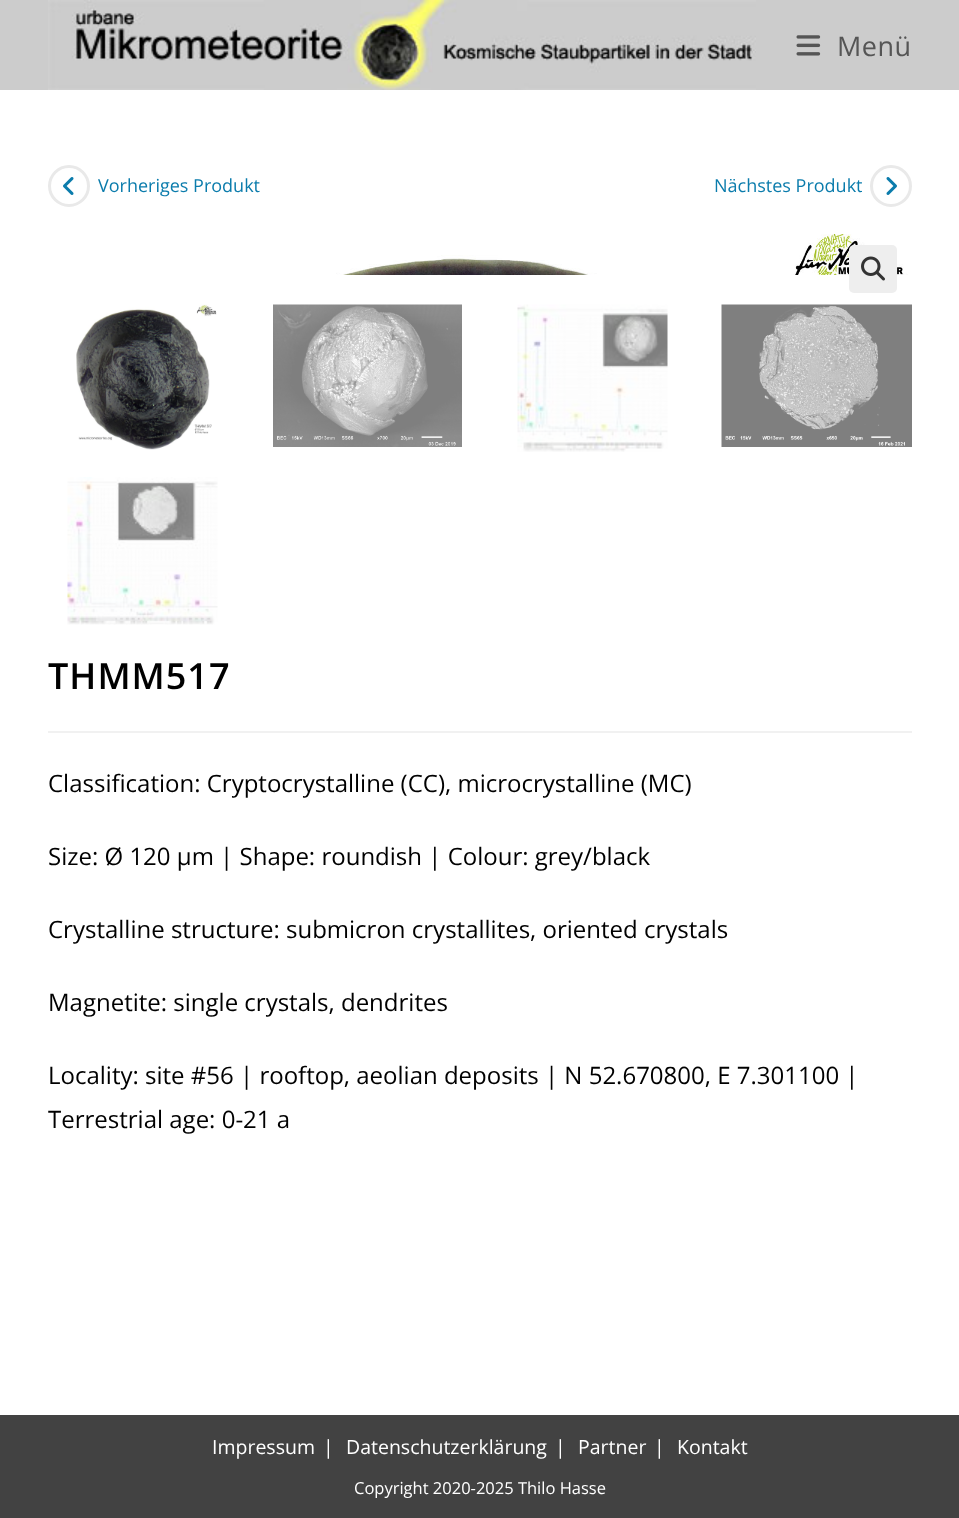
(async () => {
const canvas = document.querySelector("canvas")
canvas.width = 959
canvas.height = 1518
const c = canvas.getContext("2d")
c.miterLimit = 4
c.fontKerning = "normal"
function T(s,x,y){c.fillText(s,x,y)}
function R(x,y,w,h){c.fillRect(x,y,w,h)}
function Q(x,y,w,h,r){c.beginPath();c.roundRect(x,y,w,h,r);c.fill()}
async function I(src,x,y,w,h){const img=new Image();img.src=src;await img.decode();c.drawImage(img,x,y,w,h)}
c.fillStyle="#fff"
R(0,0,959,1518)
c.fillStyle="#ccc"
R(0,0,959,90)
await I("1.png",48,0,708,90)
await I("2.png",796,35,25,21)
c.letterSpacing="0.5px"
c.font="27px Open Sans"
c.fillStyle="#555"
T("Menü",837,56)
c.beginPath()
c.arc(69,186,19.5,0,7)
c.strokeStyle="#e9e9e9"
c.lineWidth=3
c.stroke()
await I("3.png",63,177,11,18)
c.letterSpacing="0px"
c.font="18px Open Sans"
c.fillStyle="#0b7cac"
T("Vorheriges Produkt",98,192)
T("Nächstes Produkt",714,192)
c.beginPath()
c.arc(891,186,19.5,0,7)
c.stroke()
await I("4.png",886,177,11,18)
await I("5.png",336,234,572,41)
c.fillStyle="#eee"
Q(849,245,48,48,5)
await I("6.png",861,256,24,25)
await I("7.png",76,304,141,146)
await I("8.png",273,304,189,143)
await I("9.png",517,304,151,148)
await I("10.png",721,304,191,143)
await I("11.png",67,477,151,148)
c.fillStyle="#f1f1f1"
R(48,731,864,2)
c.letterSpacing="1px"
c.font="600 36px Open Sans"
c.fillStyle="#000"
T("THMM517",48,689)
c.letterSpacing="0px"
c.font="24px Open Sans"
T("Classification: Cryptocrystalline (CC), microcrystalline (MC)",48,792)
T("Size: Ø 120 µm | Shape: roundish | Colour: grey/black",48,865)
T("Crystalline structure: submicron crystallites, oriented crystals",48,938)
T("Magnetite: single crystals, dendrites",48,1011)
T("Locality: site #56 | rooftop, aeolian deposits | N 52.670800, E 7.301100 |",48,1084)
T("Terrestrial age: 0-21 a",48,1128)
c.fillStyle="#424242"
R(0,1415,959,103)
c.font="19.5px Open Sans"
c.fillStyle="#fff"
T("Impressum",212,1454)
T("|",323,1454)
T("Datenschutzerklärung",346,1454)
T("|",555,1454)
T("Partner",578,1454)
T("|",654,1454)
T("Kontakt",677,1454)
c.font="16.5px Open Sans"
T("Copyright 2020-2025 Thilo Hasse",354,1494)
})()
